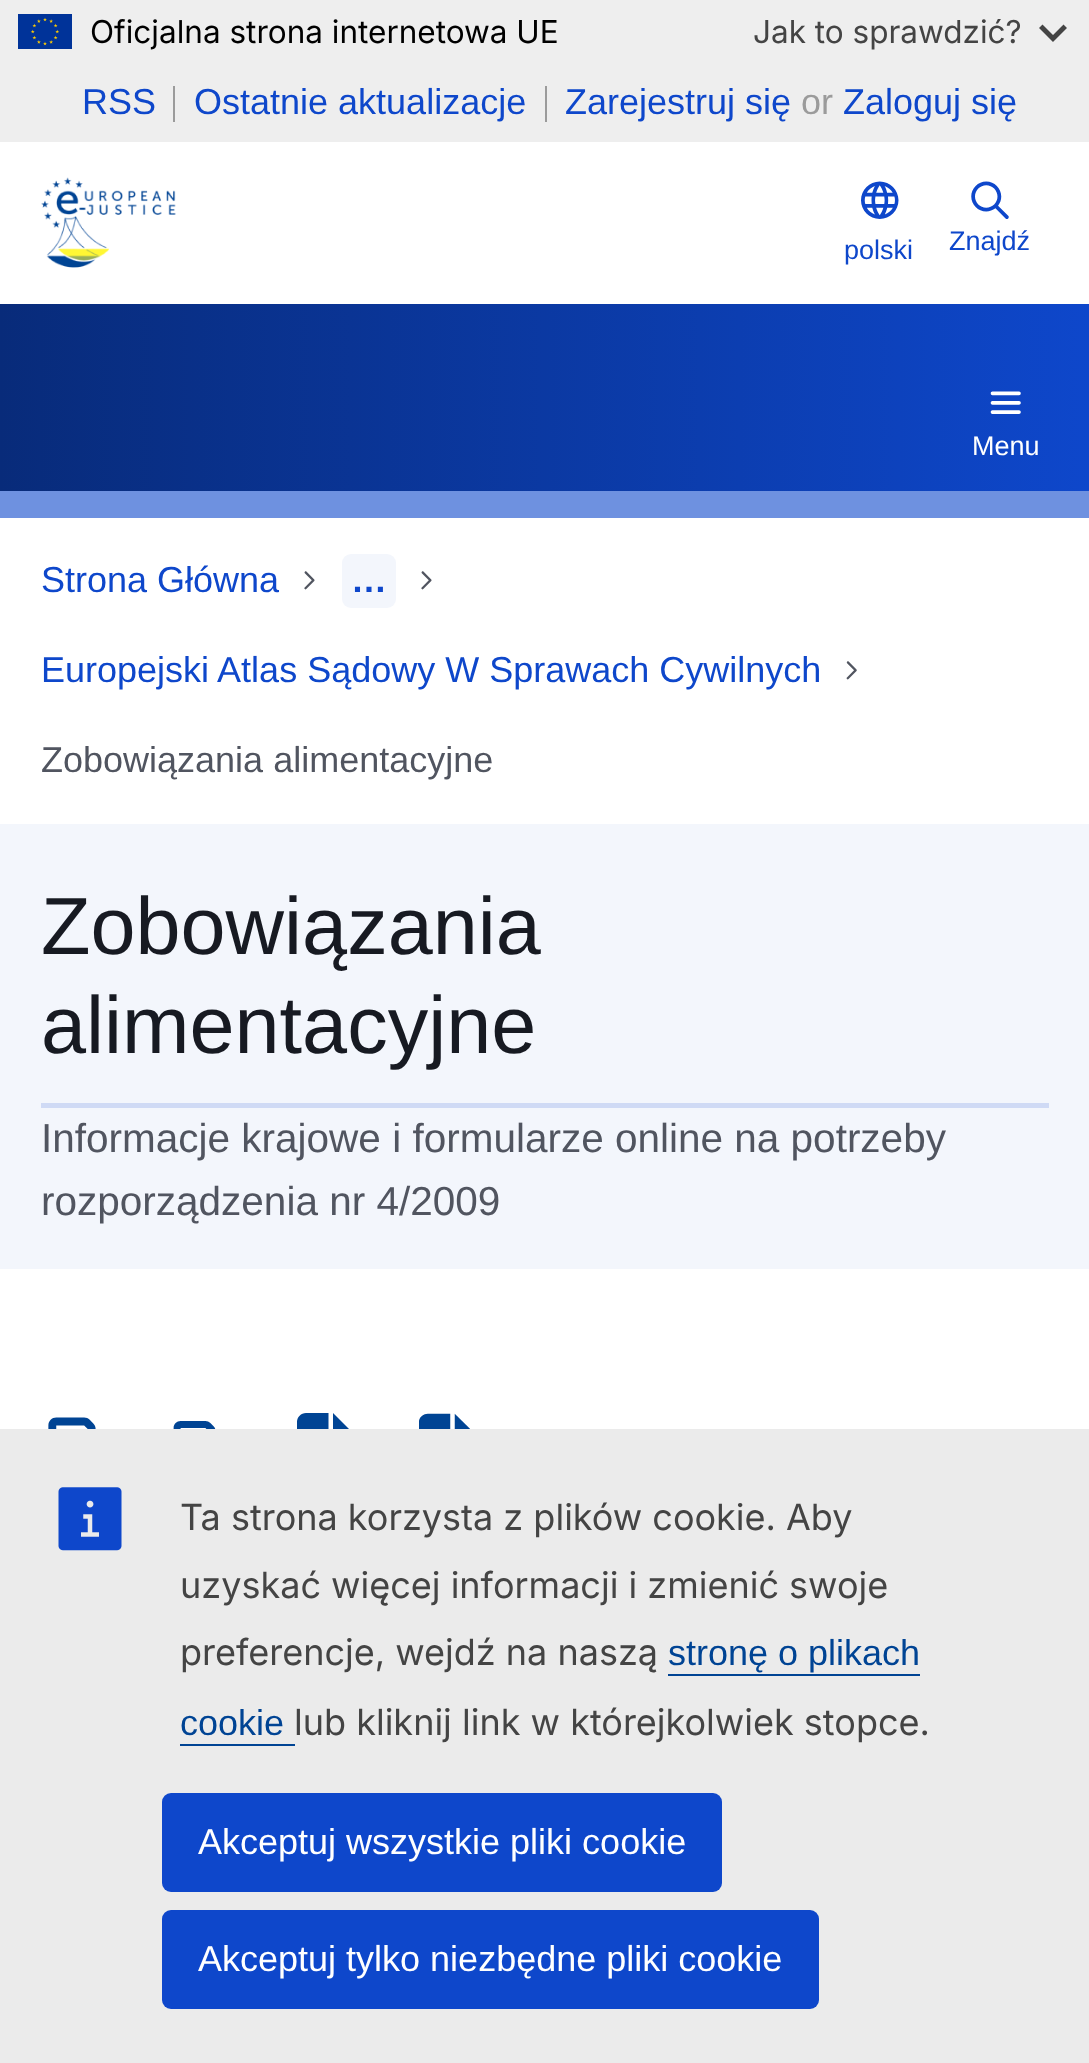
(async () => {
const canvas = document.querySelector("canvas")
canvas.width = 1089
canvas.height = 2063
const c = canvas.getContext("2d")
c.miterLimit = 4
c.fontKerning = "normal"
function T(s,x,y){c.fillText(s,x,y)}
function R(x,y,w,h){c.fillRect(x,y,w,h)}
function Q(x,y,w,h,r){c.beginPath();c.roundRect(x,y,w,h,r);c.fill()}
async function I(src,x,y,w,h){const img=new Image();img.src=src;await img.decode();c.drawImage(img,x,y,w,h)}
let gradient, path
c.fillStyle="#fff"
R(0,0,1089,2063)
c.fillStyle="#eee"
R(0,0,1089,142)
await I("1.png",18,14,54,35)
c.font="31.5px Inter"
c.fillStyle="#000"
T("Oficjalna strona internetowa UE",90,43)
c.fillStyle="#444"
T("Jak to sprawdzić?",753,43)
path = new Path2D("M1041 28l1.5-1.5l10.5 10.5l10.5-10.5l1.5 1.5l-12 12z")
c.strokeStyle="#444"
c.lineWidth=2.8
c.stroke(path)
c.fillStyle="#9b9b9b"
R(173,86,2,36)
c.font="36px Liberation Sans"
c.fillStyle="#0e47cb"
T("RSS",82,114)
c.fillStyle="#9b9b9b"
R(545,86,2,36)
c.fillStyle="#0e47cb"
T("Ostatnie aktualizacje",194,114)
T("Zarejestruj się",565,114)
c.fillStyle="#9b9b9b"
T("or",801,114)
c.fillStyle="#0e47cb"
T("Zaloguj się",843,114)
await I("2.png",41,177,135,91)
await I("3.png",861,181,38,38)
c.font="27px Liberation Sans"
T("polski",844,259)
await I("4.png",971,181,38,38)
T("Znajdź",949,250)
gradient = c.createLinearGradient(0,340,1089,340)
gradient.addColorStop(0,"#082b7a")
gradient.addColorStop(1,"#0e47cb")
c.fillStyle = gradient
R(0,304,1089,72)
gradient = c.createLinearGradient(0,433,1089,433)
gradient.addColorStop(0,"#082b7a")
gradient.addColorStop(1,"#0e47cb")
c.fillStyle = gradient
R(0,376,1089,115)
await I("5.png",990,391,31,23)
c.fillStyle="#fff"
T("Menu",972,455)
c.fillStyle="#6e91e0"
R(0,491,1089,27)
c.font="36px Liberation Sans"
c.fillStyle="#0e47cb"
T("Strona Główna",41,592)
await I("6.png",304,571,11,19)
c.fillStyle="#f3f6fc"
Q(342,554,54,54,9)
c.font="bold 36px Liberation Sans"
c.fillStyle="#0e47cb"
T("…",351,592)
await I("6.png",421,571,11,19)
c.font="36px Liberation Sans"
T("Europejski Atlas Sądowy W Sprawach Cywilnych",41,682)
await I("7.png",846,661,11,19)
c.fillStyle="#515560"
T("Zobowiązania alimentacyjne",41,772)
c.fillStyle="#f3f6fc"
R(0,824,1089,445)
c.fillStyle="#cfdaf5"
R(41,1103,1008,5)
c.font="81px Liberation Sans"
c.fillStyle="#171a22"
T("Zobowiązania",41,954)
T("alimentacyjne",41,1053)
c.font="40.5px Liberation Sans"
c.fillStyle="#515560"
T("Informacje krajowe i formularze online na potrzeby",41,1152)
T("rozporządzenia nr 4/2009",41,1215)
await I("8.png",48,1417,48,12)
await I("9.png",173,1421,43,8)
await I("10.png",297,1413,52,16)
await I("11.png",419,1413,51,16)
c.fillStyle="#ebebeb"
R(0,1429,1089,634)
await I("12.png",58,1487,64,64)
c.font="36px Inter"
c.fillStyle="#444"
T("Ta strona korzysta z plików cookie. Aby",180,1530)
T("uzyskać więcej informacji i zmienić swoje",180,1598)
T("preferencje, wejdź na naszą",180,1665)
c.font="36px Liberation Sans"
c.fillStyle="#004494"
T("stronę o plikach",668,1665)
R(668,1674,252,2)
T("cookie",180,1735)
R(180,1744,115,2)
c.font="36px Inter"
c.fillStyle="#444"
T("lub kliknij link w którejkolwiek stopce.",294,1735)
c.fillStyle="#0e47cb"
Q(162,1793,560,99,9)
c.font="36px Liberation Sans"
c.fillStyle="#fff"
T("Akceptuj wszystkie pliki cookie",198,1854)
c.fillStyle="#0e47cb"
Q(162,1910,657,99,9)
c.fillStyle="#fff"
T("Akceptuj tylko niezbędne pliki cookie",198,1971)
})()
